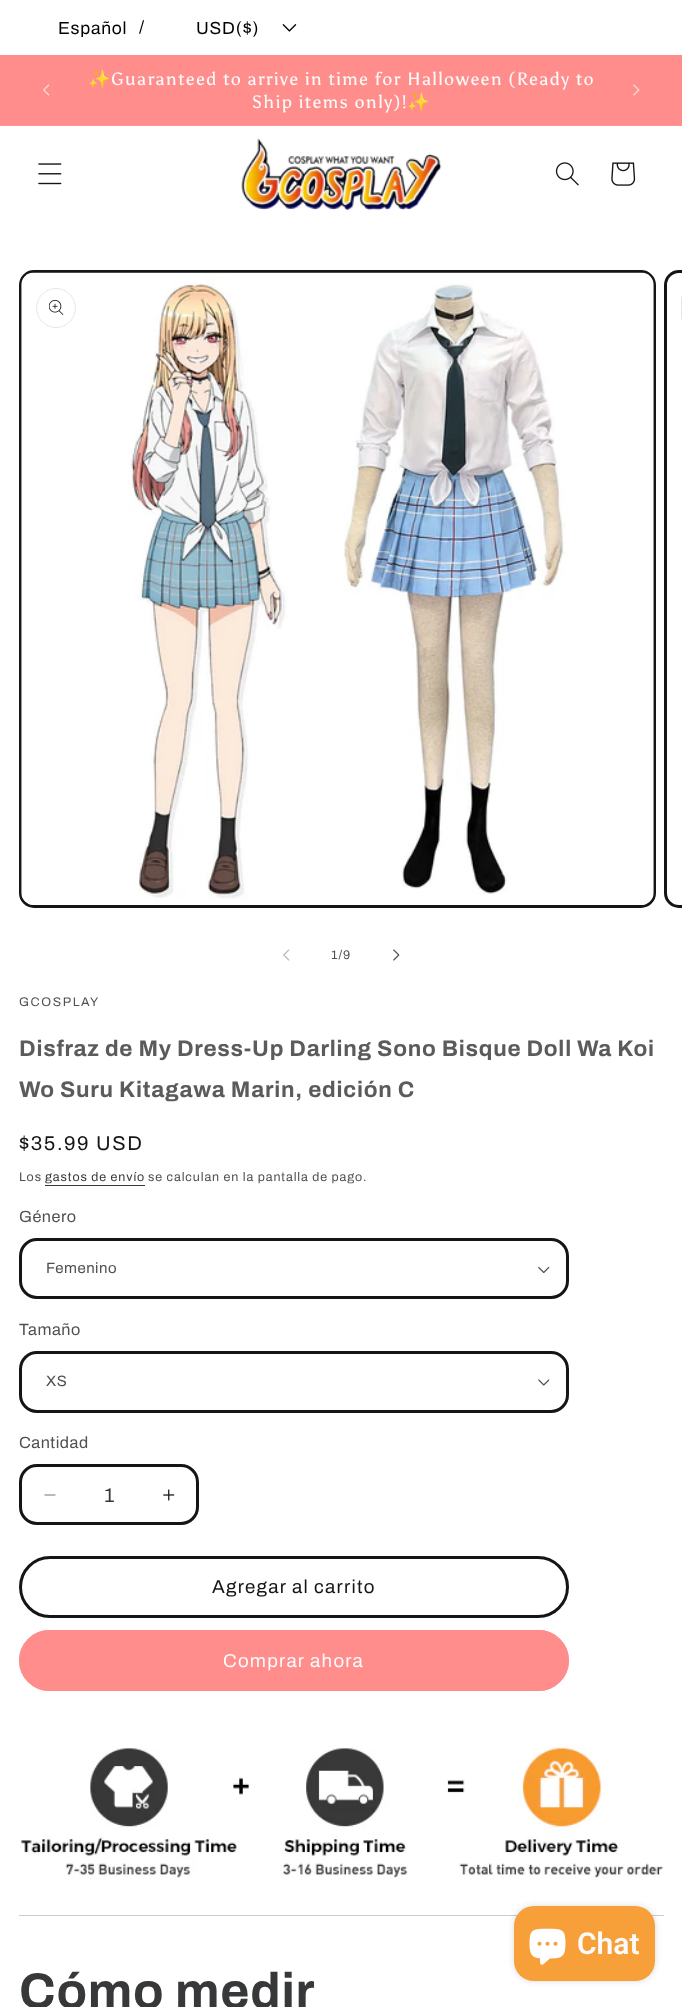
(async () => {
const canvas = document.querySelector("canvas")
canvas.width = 682
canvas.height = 2007
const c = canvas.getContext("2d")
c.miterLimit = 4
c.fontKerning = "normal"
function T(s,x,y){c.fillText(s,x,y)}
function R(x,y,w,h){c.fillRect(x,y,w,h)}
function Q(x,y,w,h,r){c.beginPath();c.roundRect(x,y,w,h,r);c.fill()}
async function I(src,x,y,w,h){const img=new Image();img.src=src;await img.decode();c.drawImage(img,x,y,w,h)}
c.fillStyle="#fff"
R(0,0,682,2007)
c.letterSpacing="0.75px"
c.font="17.5px Archivo"
c.fillStyle="#000"
T("Español",58,34)
T("/",139,33)
T("USD($)",196,34)
await I("1.png",282,24,15,8)
c.fillStyle="#ff8d8c"
R(0,55,682,70)
c.fillStyle="#ff9695"
R(0,125,682,1)
await I("2.png",43,84,7,12)
c.letterSpacing="1.25px"
c.font="18px Noto Color Emoji"
c.fillStyle="#fafafa"
T("✨",88,85)
c.font="18px Asul"
T("Guaranteed to arrive in time for Halloween (Ready to",111,85)
T("Ship items only)!",252,108)
c.font="18px Noto Color Emoji"
T("✨",407,108)
await I("3.png",633,84,7,12)
await I("4.png",38,163,24,22)
await I("5.png",241,138,201,72)
await I("6.png",555,162,24,24)
await I("7.png",611,162,25,24)
c.beginPath()
c.roundRect(20.5,271.5,634,635,13.5)
c.strokeStyle="#141516"
c.lineWidth=3
c.stroke()
await I("8.png",21,272,633,633)
c.beginPath()
c.arc(56,308,19.5,0,7)
c.strokeStyle="#e8e8e8"
c.lineWidth=1
c.stroke()
await I("9.png",49,300,15,15)
c.beginPath()
c.roundRect(665.5,271.5,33,635,13.5)
c.strokeStyle="#141516"
c.lineWidth=3
c.stroke()
c.beginPath()
c.roundRect(681.5,288.5,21,39,19.5)
c.strokeStyle="#e8e8e8"
c.lineWidth=1
c.stroke()
await I("10.png",283,949,7,12)
c.letterSpacing="0.9px"
c.font="12.5px Archivo"
c.fillStyle="#4f5050"
T("1/9",331,959)
await I("11.png",393,949,7,12)
c.letterSpacing="1.6px"
T("GCOSPLAY",19,1006)
c.letterSpacing="0.75px"
c.font="bold 22.5px Archivo"
c.fillStyle="#5b5b5c"
T("Disfraz de My Dress-Up Darling Sono Bisque Doll Wa Koi",19,1056)
T("Wo Suru Kitagawa Marin, edición C",19,1097)
c.letterSpacing="1.6px"
c.font="20px Archivo"
c.fillStyle="#141516"
T("$35.99 USD",19,1150)
c.letterSpacing="0.9px"
c.font="12.5px Archivo"
c.fillStyle="#4f5050"
T("Los",19,1181)
c.fillStyle="#373839"
T("gastos de envío",45,1181)
R(45,1185,100,1)
c.fillStyle="#4f5050"
T("se calculan en la pantalla de pago.",148,1181)
c.letterSpacing="0.5px"
c.font="16.25px Archivo"
T("Género",19,1222)
await I("12.png",538,1266,12,8)
c.beginPath()
c.roundRect(20.5,1239.5,547,58,16.5)
c.strokeStyle="#141516"
c.lineWidth=3
c.stroke()
c.font="15px Archivo"
T("Femenino",46,1273)
c.font="16.25px Archivo"
T("Tamaño",19,1335)
await I("13.png",538,1379,12,7)
c.beginPath()
c.roundRect(20.5,1352.5,547,59,16.5)
c.stroke()
c.font="15px Archivo"
T("XS",46,1386)
c.font="16.25px Archivo"
T("Cantidad",19,1448)
await I("14.png",44,1494,12,2)
await I("15.png",163,1489,12,12)
c.beginPath()
c.roundRect(20.5,1465.5,177,58,16.5)
c.stroke()
c.letterSpacing="0px"
c.font="20px Archivo"
c.fillStyle="#373839"
T("1",104,1502)
c.beginPath()
c.roundRect(20.5,1557.5,547,59,29.5)
c.stroke()
c.letterSpacing="1.25px"
c.font="18.75px Archivo"
c.fillStyle="#141516"
T("Agregar al carrito",212,1593)
c.fillStyle="#ff8d8c"
Q(19,1630,550,61,30.5)
c.beginPath()
c.roundRect(20.5,1631.5,547,58,29)
c.strokeStyle="#ff8d8c"
c.stroke()
c.fillStyle="#fafafa"
T("Comprar ahora",223,1667)
c.fillStyle="#ccc"
R(19,1915,645,1)
await I("16.png",21,1743,642,135)
c.letterSpacing="0.75px"
c.font="bold 50px Archivo"
c.fillStyle="#373839"
T("Cómo medir",19,2008)
c.fillStyle="#00000026"
c.filter="blur(3px)"
c.beginPath()
c.roundRect(514,1906,141,75,20)
c.fill()
c.filter="none"
c.fillStyle="#f7a03a"
Q(514,1906,141,75,20)
await I("17.png",529,1928,37,37)
c.letterSpacing="0px"
c.font="600 30px Roboto"
c.fillStyle="#fafafa"
T("Chat",577,1954)
})()
